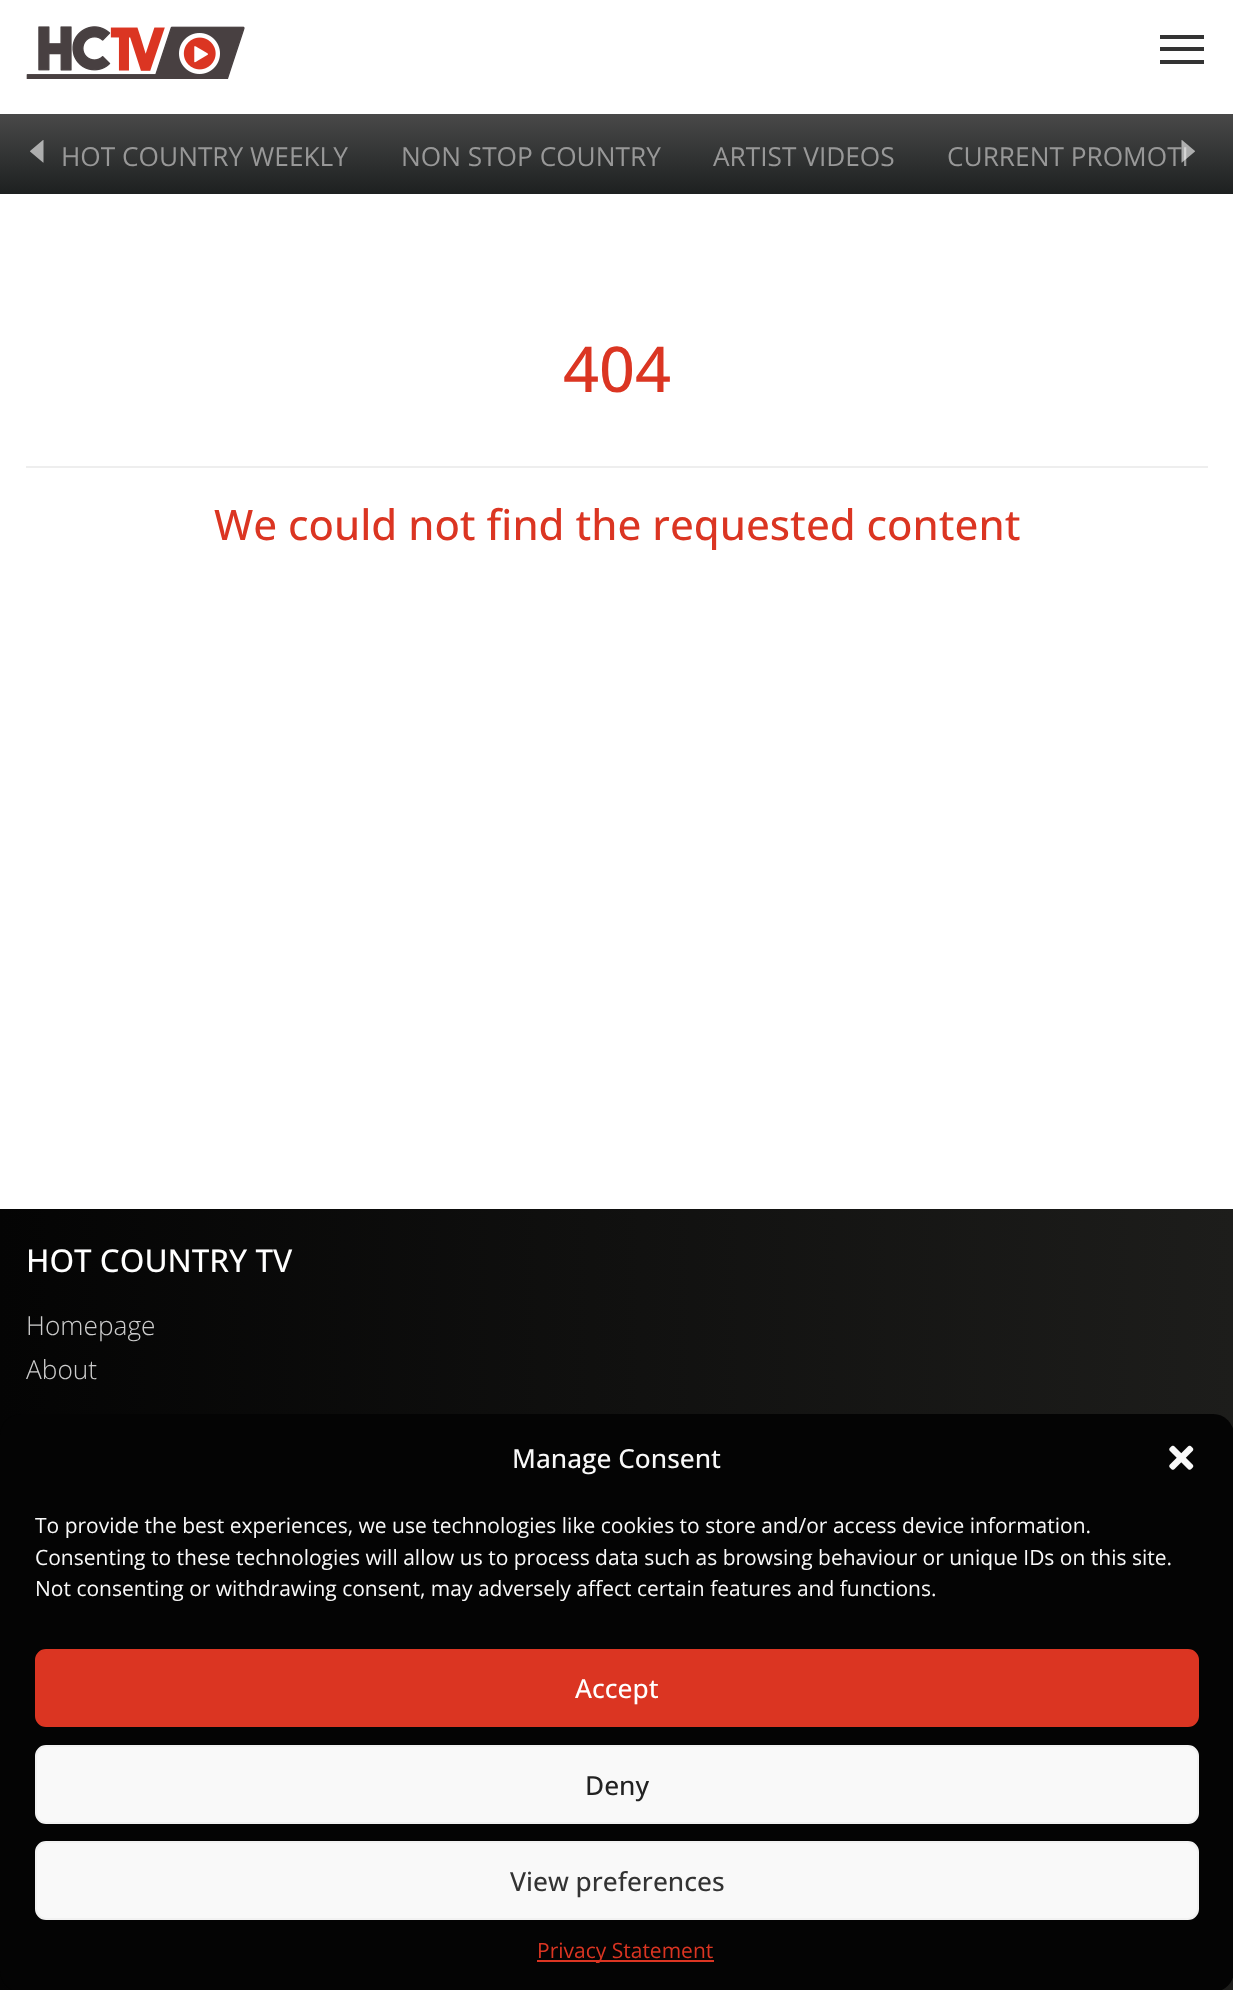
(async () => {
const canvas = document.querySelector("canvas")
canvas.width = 1233
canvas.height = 1990
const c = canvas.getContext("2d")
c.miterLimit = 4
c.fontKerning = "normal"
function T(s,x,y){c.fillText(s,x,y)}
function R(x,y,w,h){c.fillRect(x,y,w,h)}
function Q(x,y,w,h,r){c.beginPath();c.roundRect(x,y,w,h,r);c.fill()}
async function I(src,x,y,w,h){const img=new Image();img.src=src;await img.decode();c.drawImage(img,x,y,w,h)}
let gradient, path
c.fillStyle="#fff"
R(0,0,1233,1990)
await I("1.png",26,26,219,53)
c.fillStyle="#333"
R(1160,35,44,4)
R(1160,47,44,4)
R(1160,60,44,4)
gradient = c.createLinearGradient(617,114,617,194)
gradient.addColorStop(0,"#494949")
gradient.addColorStop(1,"#1d2020")
c.fillStyle = gradient
R(0,114,1233,80)
c.fillStyle="#ffffff99"
path = new Path2D("M43.5 162.5c0 .5-.5 0-.5 0l-13-11v-.5l13-11h.5z")
c.fill(path,"evenodd")
c.font="26.25px Open Sans"
c.fillStyle="#989898"
T("CURRENT PROMOTI",947,166)
c.fillStyle="#ffffff99"
path = new Path2D("M1181.5 140.5c0-.5 .5-.5 .5-.5l13 11v.5l-13 11h-.5z")
c.fill(path,"evenodd")
c.fillStyle="#989898"
T("HOT COUNTRY WEEKLY",61,166)
T("NON STOP COUNTRY",401,166)
T("ARTIST VIDEOS",713,166)
c.font="500 63px Open Sans"
c.fillStyle="#db3522"
T("404",563,392)
c.fillStyle="#eee"
R(26,466,1182,2)
c.font="500 42px Open Sans"
c.fillStyle="#db3522"
T("We could not find the requested content",214,540)
gradient = c.createLinearGradient(0,1944,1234,1944)
gradient.addColorStop(0,"#040404")
gradient.addColorStop(1,"#1d1d1b")
c.fillStyle = gradient
R(0,1209,1233,781)
c.font="500 31.5px Open Sans"
c.fillStyle="#fff"
T("HOT COUNTRY TV",26,1272)
c.font="300 26.25px Open Sans"
c.fillStyle="#cdcdcd"
T("Homepage",26,1335)
T("About",26,1379)
c.fillStyle="#040404"
Q(0,1414,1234,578,21)
c.font="500 26.25px Open Sans"
c.fillStyle="#f9f9f9"
T("Manage Consent",512,1468)
await I("2.png",1169,1445,25,25)
c.font="21px Open Sans"
T("To provide the best experiences, we use technologies like cookies to store and/or access device information.",35,1533)
T("Consenting to these technologies will allow us to process data such as browsing behaviour or unique IDs on this site.",35,1565)
T("Not consenting or withdrawing consent, may adversely affect certain features and functions.",35,1596)
c.fillStyle="#db3522"
c.beginPath()
c.roundRect(36,1650,1162,76,10)
c.fill()
c.strokeStyle="#db3522"
c.lineWidth=2
c.stroke()
c.font="500 26.25px Open Sans"
c.fillStyle="#fff"
T("Accept",575,1698)
c.fillStyle="#f9f9f9"
c.beginPath()
c.roundRect(36,1746,1162,77,10)
c.fill()
c.strokeStyle="#f2f2f2"
c.stroke()
c.fillStyle="#222"
T("Deny",585,1795)
c.fillStyle="#f9f9f9"
c.beginPath()
c.roundRect(36,1842,1162,77,10)
c.fill()
c.stroke()
c.fillStyle="#333"
T("View preferences",510,1891)
c.fillStyle="#db3522"
R(537,1960,177,2)
c.font="21px Open Sans"
T("Privacy Statement",537,1958)
})()
